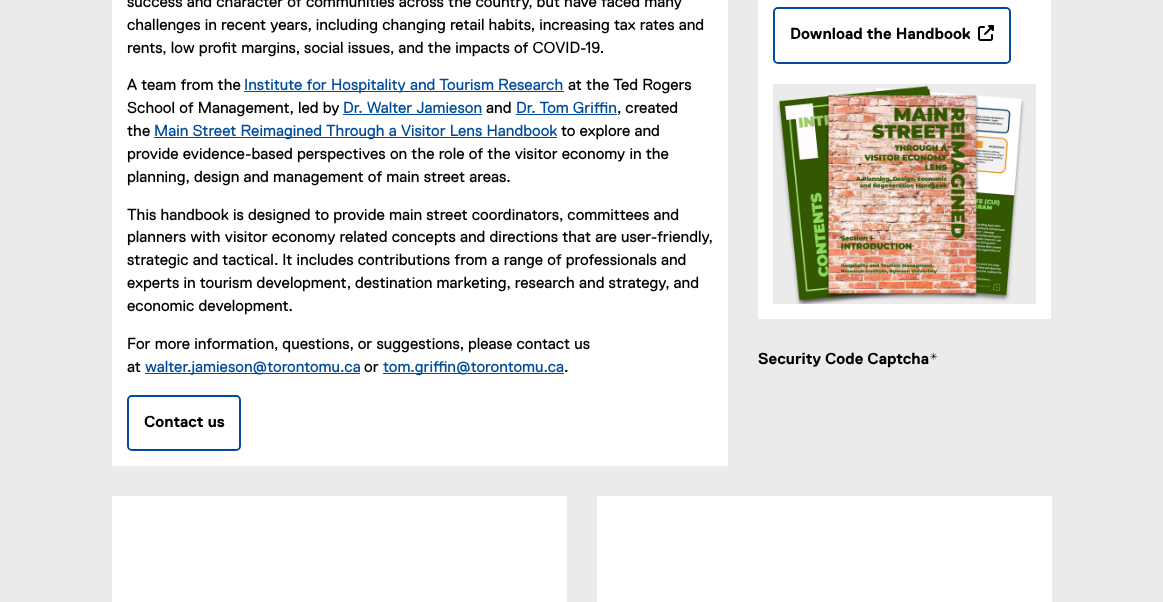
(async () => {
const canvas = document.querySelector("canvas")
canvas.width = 1163
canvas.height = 602
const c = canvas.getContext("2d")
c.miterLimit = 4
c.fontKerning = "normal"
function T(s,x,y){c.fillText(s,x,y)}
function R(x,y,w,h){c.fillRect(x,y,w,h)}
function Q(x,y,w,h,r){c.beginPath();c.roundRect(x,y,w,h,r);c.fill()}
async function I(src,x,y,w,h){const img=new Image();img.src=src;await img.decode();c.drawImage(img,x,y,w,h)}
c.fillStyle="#ebebeb"
R(0,0,1163,602)
c.fillStyle="#fff"
R(112,0,616,466)
c.font="16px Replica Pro"
c.fillStyle="#000"
T("success and character of communities across the country, but have faced many",127,7)
T("challenges in recent years, including changing retail habits, increasing tax rates and",127,30)
T("rents, low profit margins, social issues, and the impacts of COVID-19.",127,53)
T("A team from the",127,90)
c.fillStyle="#004c9b"
R(244,91,320,1)
T("Institute for Hospitality and Tourism Research",244,90)
c.fillStyle="#000"
T("at the Ted Rogers",568,90)
T("School of Management, led by",127,113)
c.fillStyle="#004c9b"
T("Dr. Walter Jamieson",343,113)
R(343,114,139,1)
c.fillStyle="#000"
T("and",486,113)
c.fillStyle="#004c9b"
T("Dr. Tom Griffin",516,113)
R(516,114,101,1)
c.fillStyle="#000"
T(", created",617,113)
T("the",127,136)
c.fillStyle="#004c9b"
R(154,137,403,1)
T("Main Street Reimagined Through a Visitor Lens Handbook",154,136)
c.fillStyle="#000"
T("to explore and",561,136)
T("provide evidence-based perspectives on the role of the visitor economy in the",127,159)
T("planning, design and management of main street areas.",127,182)
T("This handbook is designed to provide main street coordinators, committees and",127,220)
T("planners with visitor economy related concepts and directions that are user-friendly,",127,242)
T("strategic and tactical. It includes contributions from a range of professionals and",127,265)
T("experts in tourism development, destination marketing, research and strategy, and",127,288)
T("economic development.",127,311)
T("For more information, questions, or suggestions, please contact us",127,349)
T("at",127,372)
c.fillStyle="#004c9b"
R(145,373,215,1)
T("walter.jamieson@torontomu.ca",145,372)
c.fillStyle="#000"
T("or",364,372)
c.fillStyle="#004c9b"
R(383,373,181,1)
T("tom.griffin@torontomu.ca",383,372)
c.fillStyle="#000"
T(".",564,372)
c.beginPath()
c.roundRect(128,396,112,54,4)
c.strokeStyle="#004c9b"
c.lineWidth=2
c.stroke()
c.fillStyle="#fff"
Q(129,397,110,52,4)
c.font="bold 16px Replica Pro"
c.fillStyle="#000"
T("Contact us",144,427)
c.fillStyle="#fff"
R(758,0,293,319)
c.beginPath()
c.roundRect(774,8,236,55,4)
c.stroke()
Q(775,9,234,53,4)
c.fillStyle="#000"
T("Download the Handbook",790,39)
await I("1.png",978,25,16,16)
await I("2.png",773,84,263,220)
T("Security Code Captcha",758,364)
c.font="16px Replica Pro"
T("*",929,364)
c.fillStyle="#fff"
R(112,496,455,106)
R(597,496,455,106)
})()
